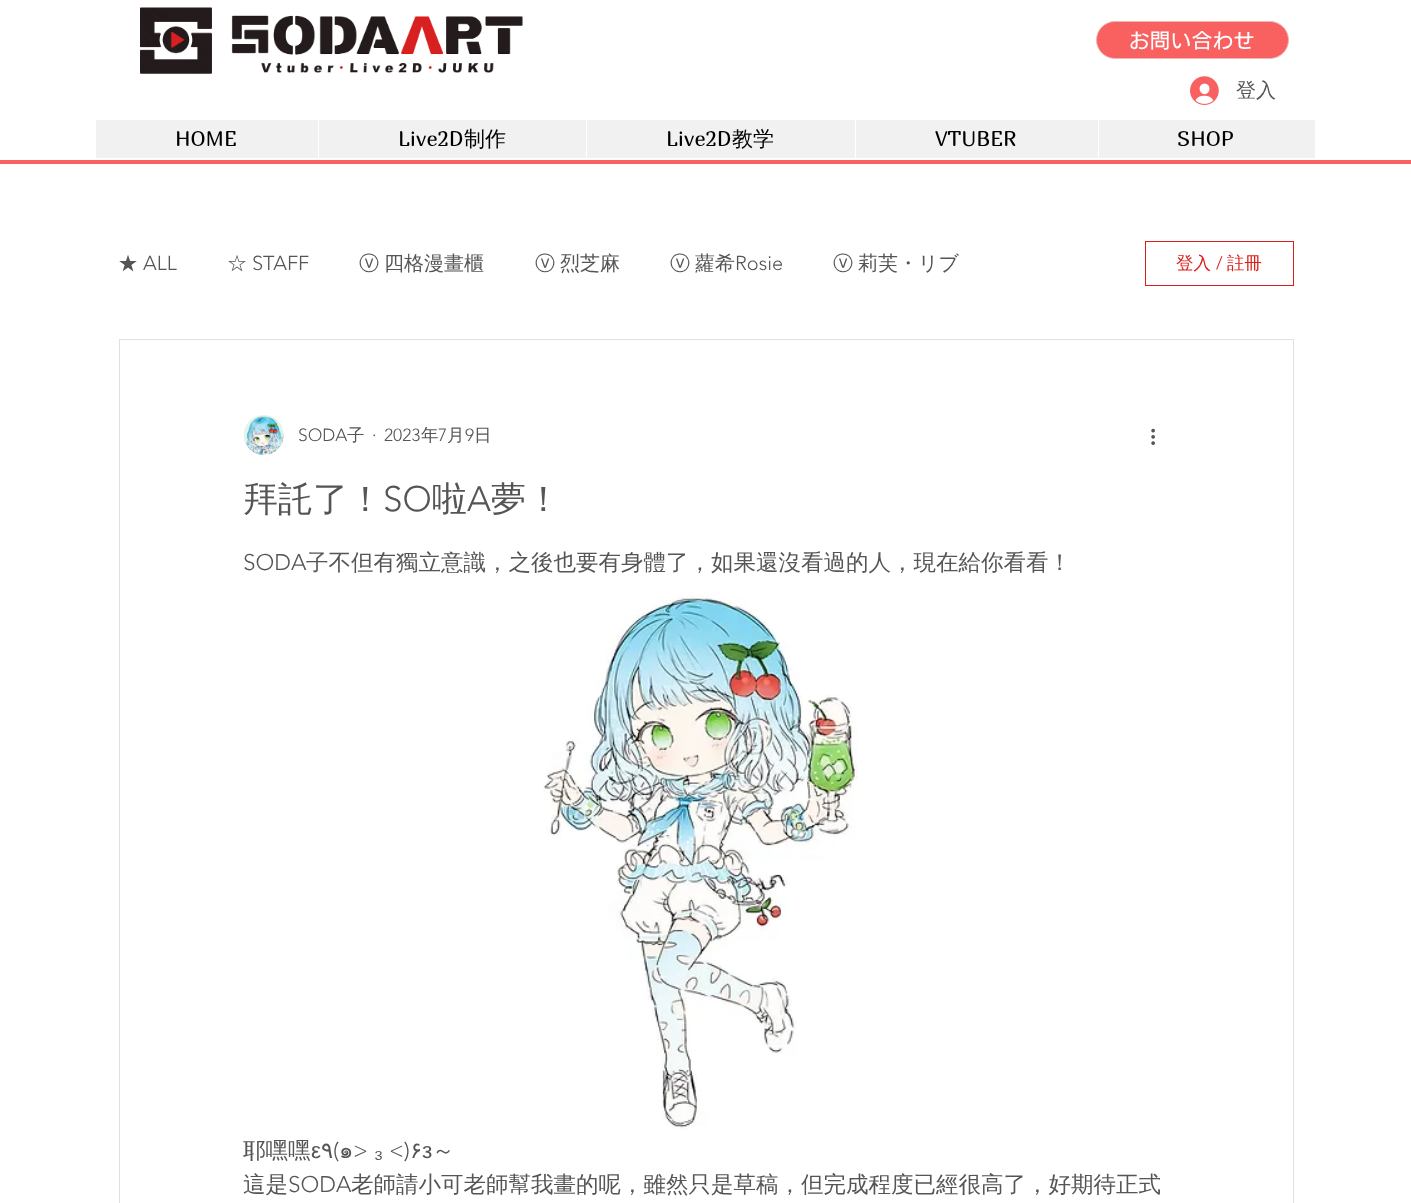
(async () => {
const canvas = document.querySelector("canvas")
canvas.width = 1411
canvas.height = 1203
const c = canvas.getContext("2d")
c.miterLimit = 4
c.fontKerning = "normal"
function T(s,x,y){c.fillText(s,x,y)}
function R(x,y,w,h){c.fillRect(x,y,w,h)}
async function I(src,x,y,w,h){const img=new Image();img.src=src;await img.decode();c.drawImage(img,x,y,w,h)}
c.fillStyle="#fff"
R(0,0,1411,1203)
await I("1.png",140,7,383,67)
c.fillStyle="#f96060"
c.beginPath()
c.roundRect(1096.5,21.5,192,37,18.5)
c.fill()
c.strokeStyle="#f0b6b6"
c.stroke()
c.letterSpacing="1px"
c.font="500 20px 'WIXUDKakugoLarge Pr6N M'"
c.fillStyle="#fff"
T("お問い合わせ",1129,48)
await I("2.png",1190,76,29,29)
c.letterSpacing="0px"
c.font="500 20px WenQuanYi Zen Hei"
c.fillStyle="#555"
T("登入",1236,97)
c.fillStyle="#f1f1f1"
R(96,120,1219,38)
c.font="21px Marmelad"
c.fillStyle="#000"
T("HOME",175,146)
c.fillStyle="#fff"
R(318,120,1,38)
c.fillStyle="#000"
T("Live2D",398,146)
c.font="500 21px WenQuanYi Zen Hei"
T("制作",464,146)
c.fillStyle="#fff"
R(586,120,1,38)
c.font="21px Marmelad"
c.fillStyle="#000"
T("Live2D",666,146)
c.font="500 21px WenQuanYi Zen Hei"
T("教学",732,146)
c.fillStyle="#fff"
R(855,120,1,38)
c.font="21px Marmelad"
c.fillStyle="#000"
T("VTUBER",935,146)
c.fillStyle="#fff"
R(1098,120,1,38)
c.fillStyle="#000"
T("SHOP",1177,146)
c.fillStyle="#f96060"
R(0,160,1411,4)
c.font="500 20px WenQuanYi Zen Hei"
c.fillStyle="#555"
T("★",118,270)
c.font="300 20px 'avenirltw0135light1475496'"
T("ALL",143,270)
c.font="500 20px WenQuanYi Zen Hei"
T("☆",227,270)
c.font="300 20px 'avenirltw0135light1475496'"
T("STAFF",252,270)
c.wordSpacing="-1px"
c.font="500 20px WenQuanYi Zen Hei"
T("ⓥ 四格漫畫櫃",359,270)
T("ⓥ 烈芝麻",535,270)
T("ⓥ 蘿希",670,270)
c.wordSpacing="0px"
c.font="300 20px 'avenirltw0135light1475496'"
T("Rosie",735,270)
c.wordSpacing="-1px"
c.font="500 20px WenQuanYi Zen Hei"
T("ⓥ 莉芙・リブ",833,270)
c.strokeStyle="#da201c"
c.strokeRect(1145.5,241.5,148,44)
c.wordSpacing="0px"
c.font="500 17.5px WenQuanYi Zen Hei"
c.fillStyle="#da201c"
T("登入",1176,269)
c.font="300 17.5px 'avenirltw0135light1475496'"
T("/",1216,269)
c.font="500 17.5px WenQuanYi Zen Hei"
T("註冊",1227,269)
c.strokeStyle="#e0e0e0"
c.strokeRect(119.5,339.5,1174,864)
await I("3.png",244,415,40,40)
c.font="300 17.5px 'avenirltw0135light1475496'"
c.fillStyle="#555"
T("SODA",298,441)
c.font="500 17.5px WenQuanYi Zen Hei"
T("子",347,441)
c.font="300 17.5px 'avenirltw0135light1475496'"
T("·",372,441)
T("2023",384,441)
c.font="500 17.5px WenQuanYi Zen Hei"
T("年",421,441)
c.font="300 17.5px 'avenirltw0135light1475496'"
T("7",438,441)
c.font="500 17.5px WenQuanYi Zen Hei"
T("月",447,441)
c.font="300 17.5px 'avenirltw0135light1475496'"
T("9",465,441)
c.font="500 17.5px WenQuanYi Zen Hei"
T("日",474,441)
await I("4.png",1151,428,4,17)
c.font="500 35px WenQuanYi Zen Hei"
T("拜託了！",243,511)
c.font="300 35px 'avenirltw0135light1475496'"
T("SO",383,511)
c.font="500 35px WenQuanYi Zen Hei"
T("啦",432,511)
c.font="300 35px 'avenirltw0135light1475496'"
T("A",467,511)
c.font="500 35px WenQuanYi Zen Hei"
T("夢！",491,511)
c.font="300 22.5px 'avenirltw0135light1475496'"
T("SODA",243,570)
c.font="500 22.5px WenQuanYi Zen Hei"
T("子不但有獨立意識，之後也要有身體了，如果還沒看過的人，現在給你看看！",306,570)
await I("5.png",543,595,315,535)
T("耶嘿嘿",243,1158)
c.font="22.5px Liberation Sans"
T("ε",311,1158)
c.font="22.5px DejaVu Sans"
T("٩",321,1158)
c.font="300 22.5px 'avenirltw0135light1475496'"
T("(",333,1158)
c.font="22.5px Loma"
T("๑",339,1158)
c.font="300 22.5px 'avenirltw0135light1475496'"
T(">",353,1158)
c.font="22.5px Liberation Sans"
T("₃",374,1158)
c.font="300 22.5px 'avenirltw0135light1475496'"
T("<)",389,1158)
c.font="22.5px DejaVu Sans"
T("۶",410,1158)
c.font="22.5px Liberation Sans"
T("з",422,1158)
c.font="500 22.5px WenQuanYi Zen Hei"
T("～",432,1158)
T("這是",243,1192)
c.font="300 22.5px 'avenirltw0135light1475496'"
T("SODA",288,1192)
c.font="500 22.5px WenQuanYi Zen Hei"
T("老師請小可老師幫我畫的呢，雖然只是草稿，但完成程度已經很高了，好期待正式",351,1192)
})()
